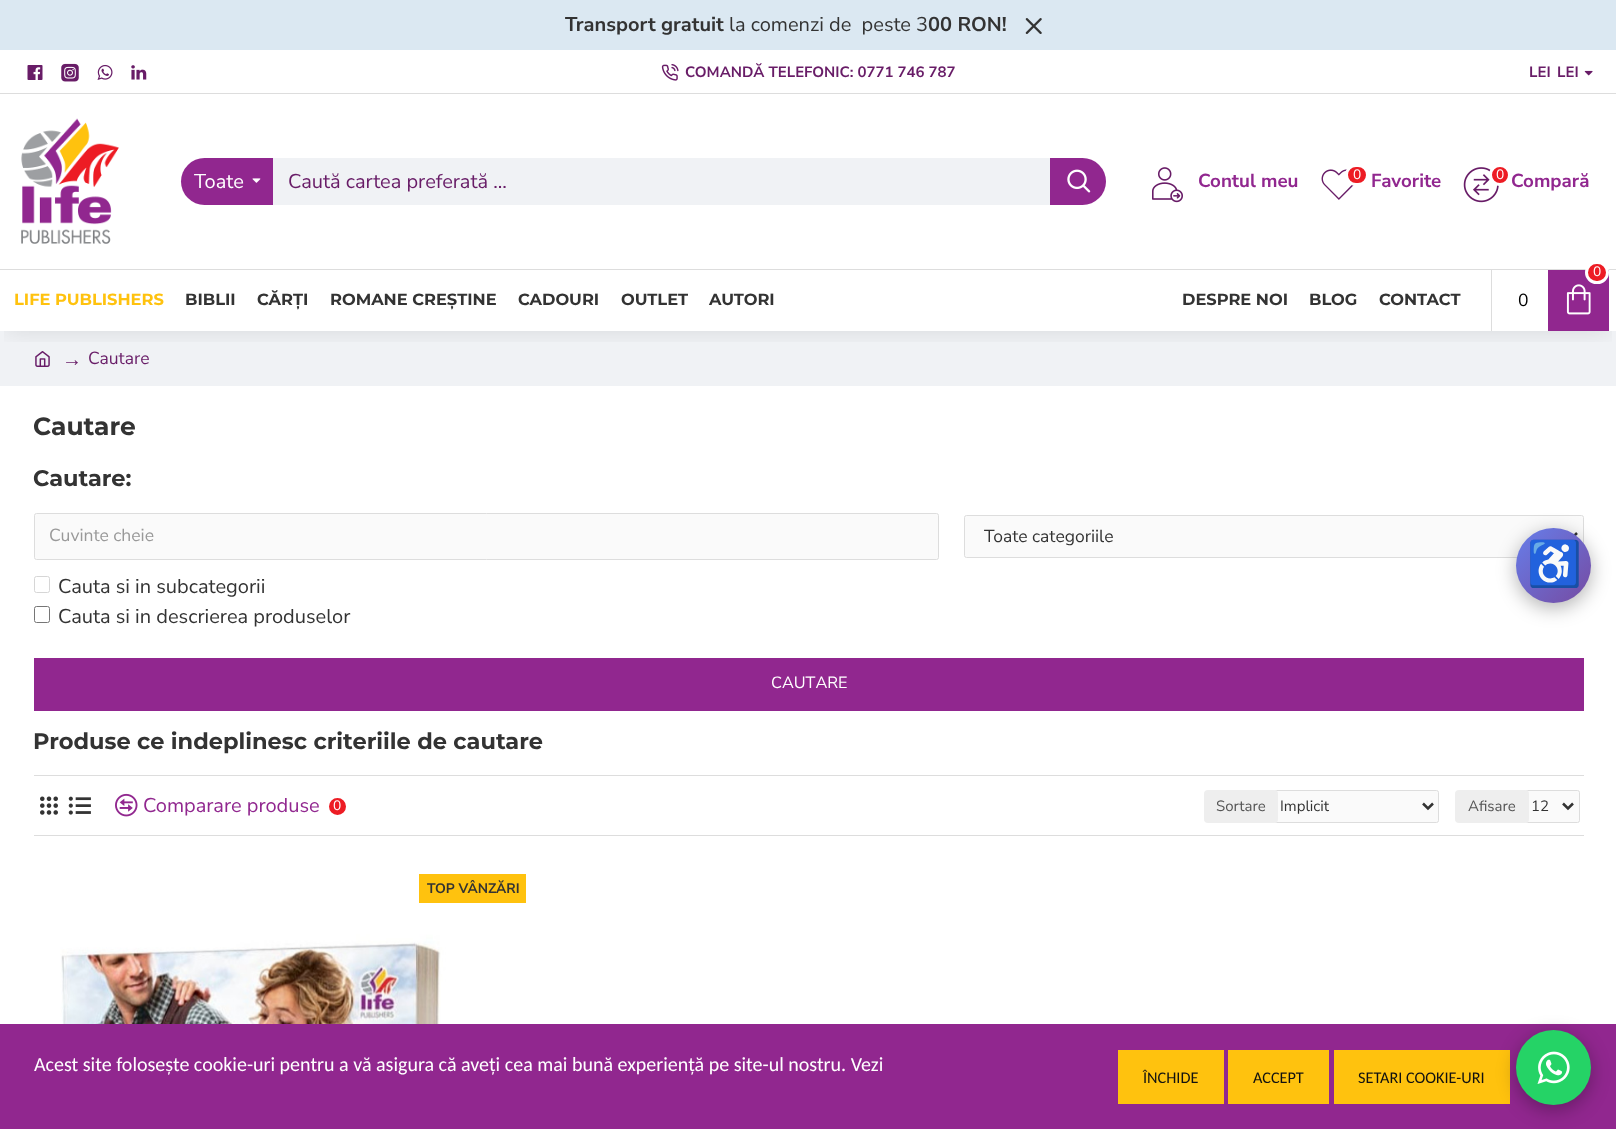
(async () => {
const canvas = document.querySelector("canvas")
canvas.width = 1616
canvas.height = 1129
const c = canvas.getContext("2d")
c.miterLimit = 4
c.fontKerning = "normal"
function T(s,x,y){c.fillText(s,x,y)}
function R(x,y,w,h){c.fillRect(x,y,w,h)}
function Q(x,y,w,h,r){c.beginPath();c.roundRect(x,y,w,h,r);c.fill()}
async function I(src,x,y,w,h){const img=new Image();img.src=src;await img.decode();c.drawImage(img,x,y,w,h)}
let gradient, path
c.fillStyle="#fff"
R(0,0,1616,1129)
c.fillStyle="#dbe8f2"
R(0,0,1616,50)
c.font="bold 20px Nunito Sans"
c.fillStyle="#333"
T("Transport gratuit",565,31)
c.font="20px Nunito Sans"
T("la comenzi de  peste 3",729,31)
c.font="bold 20px Nunito Sans"
T("00 RON!",928,31)
await I("1.png",1025,18,17,16)
c.fillStyle="#f0f2f5"
R(0,331,1616,55)
await I("15.png",35,351,15,16)
c.save()
c.beginPath()
c.rect(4,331,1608,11)
c.clip()
c.fillStyle="#0000001a"
c.filter="blur(12.5px)"
c.beginPath()
c.rect(6,63,1604,268)
c.fill()
c.filter="none"
c.restore()
await I("2.png",27,65,16,15)
await I("3.png",61,63,18,19)
await I("4.png",97,64,16,16)
await I("5.png",131,65,16,15)
await I("6.png",661,64,18,17)
c.font="bold 15px Nunito Sans"
c.fillStyle="#681c67"
T("COMANDĂ TELEFONIC: 0771 746 787",685,77)
T("LEI",1529,77)
T("LEI",1557,77)
await I("7.png",1584,70,9,6)
await I("8.png",21,118,98,126)
c.fillStyle="#91278f"
c.beginPath()
c.roundRect(181,158,92,47,[23.5,0,0,23.5])
c.fill()
c.font="20px Nunito Sans"
c.fillStyle="#fff"
T("Toate",194,188)
await I("9.png",252,178,9,5)
c.fillStyle="#f0f2f5"
R(273,158,777,47)
c.fillStyle="#681c67"
T("Caută cartea preferată ...",288,188)
c.fillStyle="#91278f"
c.beginPath()
c.roundRect(1050,158,56,47,[0,23.5,23.5,0])
c.fill()
await I("10.png",1067,169,24,24)
await I("11.png",1152,167,31,36)
c.font="bold 18.75px Nunito Sans"
T("Contul meu",1198,187)
await I("12.png",1321,169,33,31)
c.fillStyle="#ed1c24"
c.beginPath()
c.roundRect(1346.5,165.5,21,19,9.5)
c.fill()
c.strokeStyle="#fff"
c.lineWidth=3
c.stroke()
c.font="13.75px Nunito Sans"
c.fillStyle="#fff"
T("0",1353,179)
c.font="bold 18.75px Nunito Sans"
c.fillStyle="#91278f"
T("Favorite",1371,187)
await I("13.png",1463,167,36,36)
c.fillStyle="#ed1c24"
c.beginPath()
c.arc(1500,175,9.5,0,7)
c.fill()
c.stroke()
c.font="13.75px Nunito Sans"
c.fillStyle="#fff"
T("0",1496,179)
c.font="bold 18.75px Nunito Sans"
c.fillStyle="#91278f"
T("Compară",1511,187)
c.fillStyle="#ddd"
R(0,269,1616,1)
R(1491,269,1,62)
c.fillStyle="#91278f"
R(1548,270,61,61)
c.fillStyle="#ed1c24"
c.beginPath()
c.roundRect(1586.5,262.5,21,20,10)
c.fill()
c.stroke()
c.font="13.75px Nunito Sans"
c.fillStyle="#fff"
T("0",1593,276)
c.font="17.5px Nunito Sans"
c.fillStyle="#000"
T("0",1518,306)
await I("14.png",1566,284,25,31)
c.font="bold 16.25px Montserrat"
c.fillStyle="#ffc20e"
T("LIFE PUBLISHERS",14,305)
c.fillStyle="#333"
T("BIBLII",185,305)
T("CĂRȚI",257,305)
T("ROMANE CREȘTINE",330,305)
T("CADOURI",518,305)
T("OUTLET",621,305)
T("AUTORI",709,305)
T("DESPRE NOI",1182,305)
T("BLOG",1309,305)
T("CONTACT",1379,305)
c.fillStyle="#ddd"
R(0,93,1616,1)
c.font="20px Liberation Serif"
c.fillStyle="#681c67"
T("→",62,366)
c.font="17.5px Nunito Sans"
T("Cautare",88,364)
c.font="bold 25px Montserrat"
c.fillStyle="#333"
T("Cautare",33,435)
c.font="bold 22.5px Montserrat"
T("Cautare:",33,486)
c.fillStyle="#fafafa"
c.beginPath()
c.roundRect(34.5,513.5,904,46,2)
c.fill()
c.strokeStyle="#ddd"
c.lineWidth=1
c.stroke()
c.font="17.5px Nunito Sans"
c.fillStyle="#999"
T("Cuvinte cheie",49,541)
c.fillStyle="#fafafa"
c.beginPath()
c.roundRect(964.5,515.5,619,42,2)
c.fill()
c.stroke()
path = new Path2D("M1567 533l5 5l5-5")
c.strokeStyle="#333"
c.lineWidth=2.5
c.stroke(path)
c.fillStyle="#333"
T("Toate categoriile",984,542)
c.beginPath()
c.roundRect(34.5,576.5,15,16,2)
c.strokeStyle="#d6d6d6"
c.lineWidth=1
c.stroke()
c.font="20px Nunito Sans"
T("Cauta si in subcategorii",58,593)
c.beginPath()
c.roundRect(34.5,606.5,15,16,2)
c.strokeStyle="#767676"
c.stroke()
T("Cauta si in descrierea produselor",58,623)
c.fillStyle="#91278f"
R(34,658,1550,53)
c.font="16.25px Nunito Sans"
c.fillStyle="#fff"
T("CAUTARE",771,688)
c.font="bold 22.5px Montserrat"
c.fillStyle="#333"
T("Produse ce indeplinesc criteriile de cautare",33,749)
c.fillStyle="#ddd"
R(34,775,1550,1)
R(34,835,1550,1)
await I("16.png",40,796,18,19)
await I("17.png",68,796,23,19)
await I("18.png",115,793,23,24)
c.font="20px Nunito Sans"
c.fillStyle="#91278f"
T("Comparare produse",143,812)
c.fillStyle="#ed1c24"
c.beginPath()
c.arc(337.5,806.5,10,0,7)
c.fill()
c.strokeStyle="#fff"
c.lineWidth=3
c.stroke()
c.font="13.75px Nunito Sans"
c.fillStyle="#fff"
T("0",333,810)
c.fillStyle="#fafafa"
c.beginPath()
c.roundRect(1274.5,790.5,164,32,2)
c.fill()
c.strokeStyle="#ddd"
c.lineWidth=1
c.stroke()
c.fillStyle="#eee"
Q(1204,790,74,33,4)
c.font="15px Nunito Sans"
c.fillStyle="#555"
T("Sortare",1216,811)
path = new Path2D("M1423 803.5l5 5l5-5")
c.strokeStyle="#333"
c.lineWidth=2.5
c.stroke(path)
c.fillStyle="#333"
T("Implicit",1280,811)
c.fillStyle="#fafafa"
c.beginPath()
c.roundRect(1525.5,790.5,54,32,2)
c.fill()
c.strokeStyle="#ddd"
c.lineWidth=1
c.stroke()
c.fillStyle="#eee"
Q(1455,790,74,33,4)
c.fillStyle="#555"
T("Afisare",1468,811)
path = new Path2D("M1563 803.5l5 5l5-5")
c.strokeStyle="#333"
c.lineWidth=2.5
c.stroke(path)
c.fillStyle="#333"
T("12",1531,811)
await I("19.png",34,868,499,156)
c.fillStyle="#ffc20e"
R(419,874,107,29)
c.font="bold 13.75px Nunito Sans"
c.fillStyle="#333"
T("TOP VÂNZĂRI",427,893)
c.fillStyle="#91278f"
R(0,1024,1616,105)
c.font="20px Carlito"
c.fillStyle="#fff"
T("Acest site folosește cookie-uri pentru a vă asigura că aveți cea mai bună experiență pe site-ul nostru. Vezi",34,1071)
c.fillStyle="#ffc20e"
R(1118,1050,106,54)
c.font="16.25px Carlito"
c.fillStyle="#111"
T("ÎNCHIDE",1143,1083)
c.fillStyle="#ffc20e"
R(1228,1050,101,54)
c.fillStyle="#111"
T("ACCEPT",1253,1083)
c.fillStyle="#ffc20e"
R(1334,1050,176,54)
c.fillStyle="#111"
T("SETARI COOKIE-URI",1358,1083)
c.fillStyle="#0000004d"
c.filter="blur(9.5px)"
c.beginPath()
c.roundRect(1516,533,75,75,37.5)
c.fill()
c.filter="none"
gradient = c.createLinearGradient(1516,528,1591,603)
gradient.addColorStop(0,"#667eea")
gradient.addColorStop(1,"#764ba2")
c.fillStyle = gradient
c.beginPath()
c.arc(1553.5,565.5,37.5,0,7)
c.fill()
c.font="44px Noto Color Emoji"
c.fillStyle="#fff"
T("♿",1527,579)
c.fillStyle="#0000004d"
c.filter="blur(9.5px)"
c.beginPath()
c.roundRect(1516,1035,75,75,37.5)
c.fill()
c.filter="none"
c.fillStyle="#25d366"
c.beginPath()
c.arc(1553.5,1067.5,37.5,0,7)
c.fill()
await I("20.png",1537,1051,33,33)
})()
